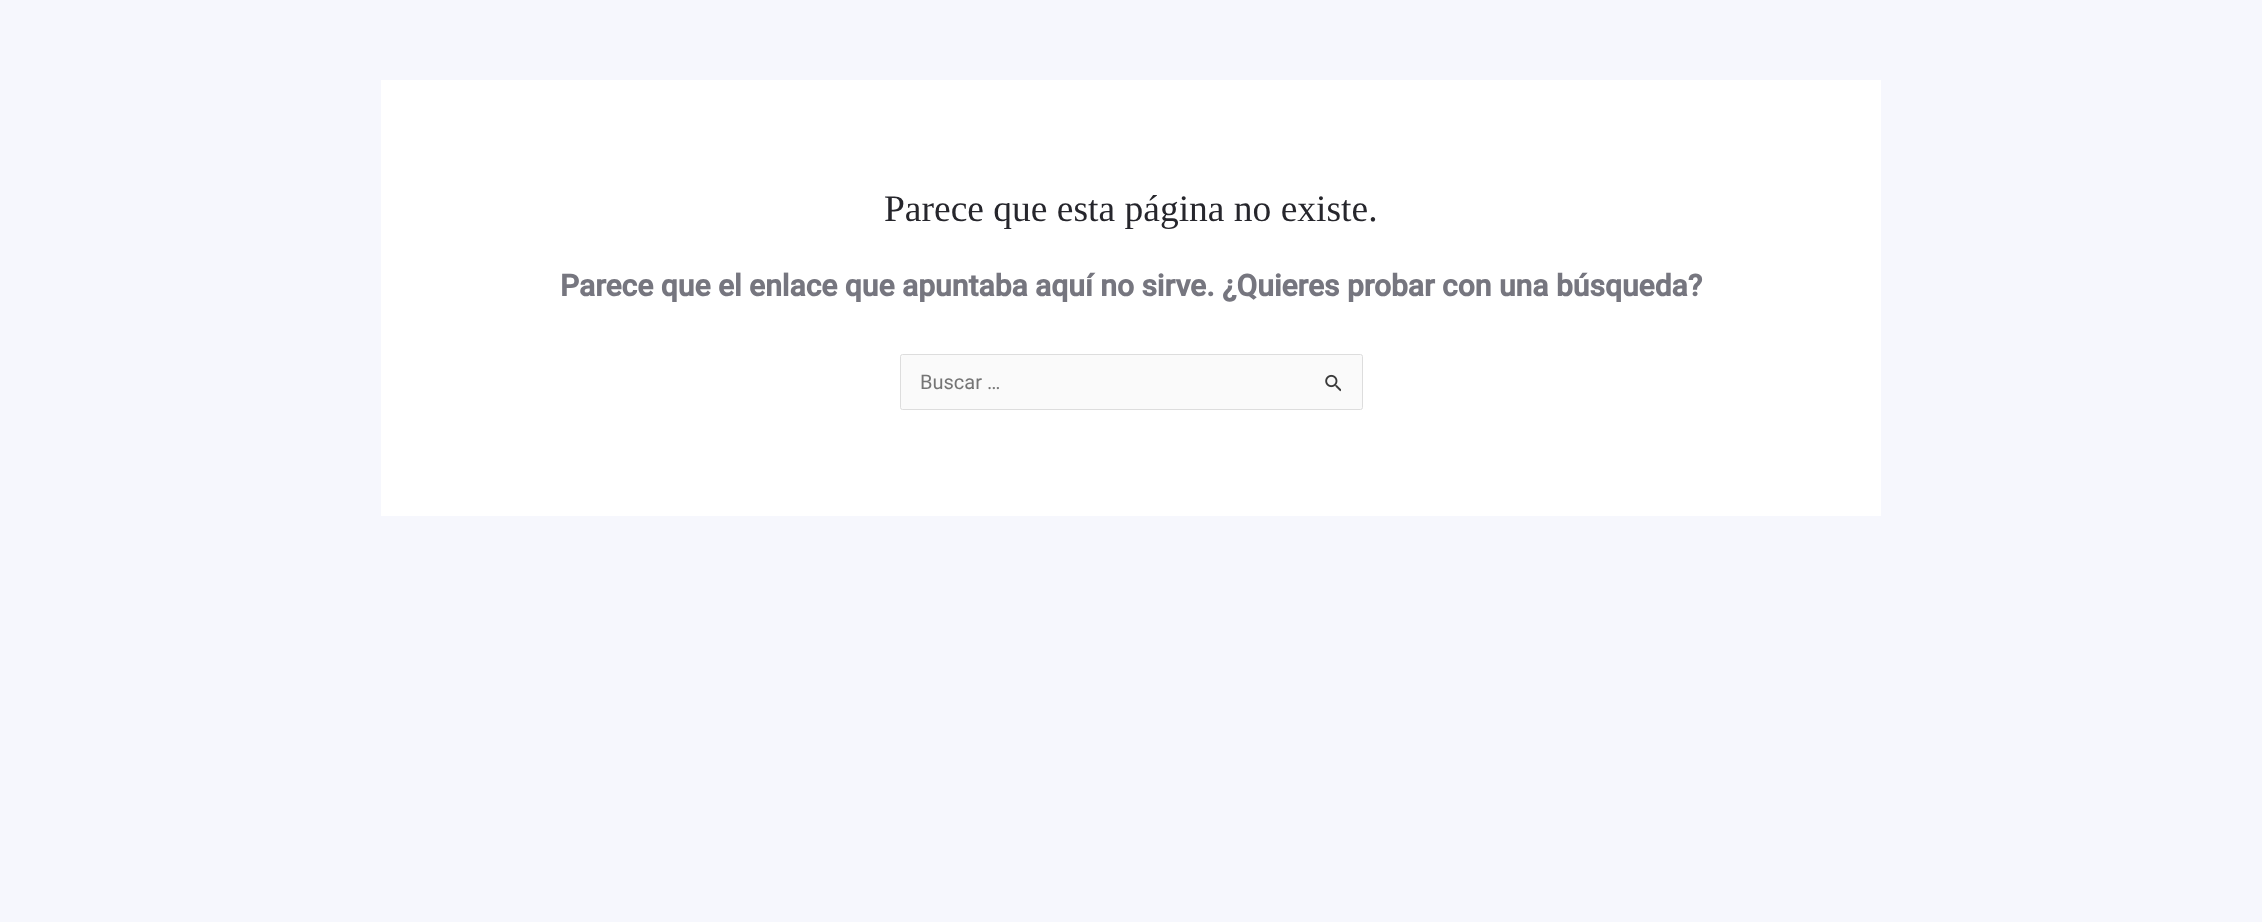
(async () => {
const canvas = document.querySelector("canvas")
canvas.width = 2262
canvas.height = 922
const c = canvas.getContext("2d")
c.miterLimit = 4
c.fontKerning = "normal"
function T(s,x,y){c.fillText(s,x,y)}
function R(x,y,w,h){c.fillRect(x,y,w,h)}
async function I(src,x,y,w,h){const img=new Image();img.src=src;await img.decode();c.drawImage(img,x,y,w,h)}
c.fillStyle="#f6f7fd"
R(0,0,2262,922)
c.fillStyle="#fff"
R(381,80,1500,436)
c.font="37.5px Liberation Serif"
c.fillStyle="#26262c"
T("Parece que esta página no existe.",884,221)
c.font="bold 30px Roboto"
c.fillStyle="#76767f"
T("Parece que el enlace que apuntaba aquí no sirve. ¿Quieres probar con una búsqueda?",560,296)
c.fillStyle="#fafafa"
c.beginPath()
c.roundRect(900.5,354.5,462,55,2)
c.fill()
c.strokeStyle="#ddd"
c.stroke()
c.font="20px Roboto"
c.fillStyle="#757575"
T("Buscar …",920,389)
await I("1.png",1325,374,16,18)
})()
